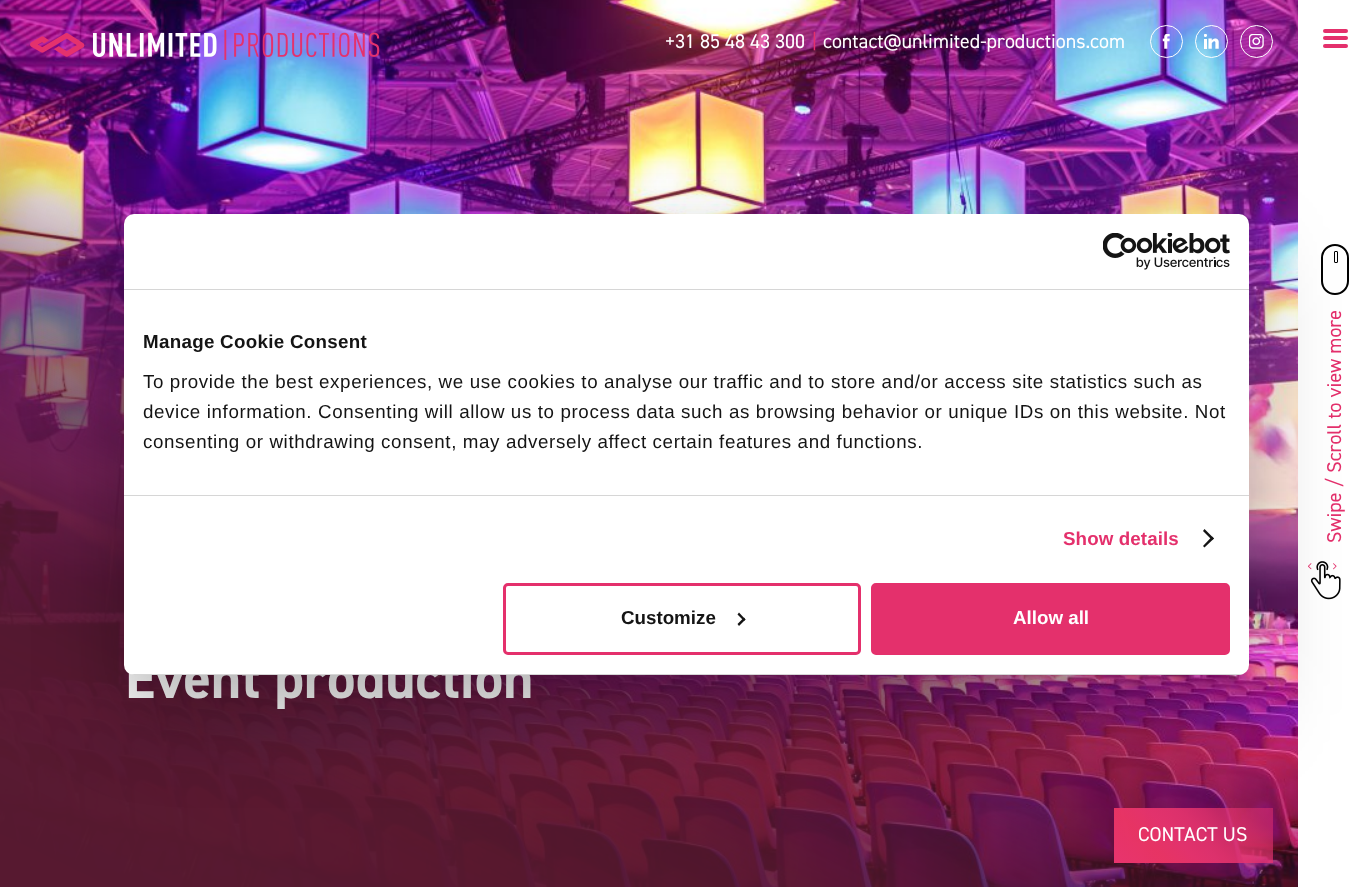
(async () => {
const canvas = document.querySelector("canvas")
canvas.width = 1372
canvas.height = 887
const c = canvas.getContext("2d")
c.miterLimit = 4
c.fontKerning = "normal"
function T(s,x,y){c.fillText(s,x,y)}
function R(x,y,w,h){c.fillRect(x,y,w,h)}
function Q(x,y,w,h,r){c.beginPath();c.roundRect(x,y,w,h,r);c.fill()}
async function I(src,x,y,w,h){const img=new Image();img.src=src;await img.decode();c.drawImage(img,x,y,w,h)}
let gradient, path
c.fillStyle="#fff"
R(0,0,1372,887)
await I("5.png",0,0,1298,887)
await I("1.png",30,30,350,30)
c.font="20px 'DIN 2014'"
T("+31 85 48 43 300",665,48)
c.fillStyle="#e4306c"
T("|",812,48)
c.fillStyle="#fff"
T("contact@unlimited-productions.com",823,48)
c.beginPath()
c.arc(1166.5,41.5,16,0,7)
c.strokeStyle="#fff"
c.stroke()
await I("2.png",1162,34,8,15)
c.beginPath()
c.arc(1211.5,41.5,16,0,7)
c.stroke()
await I("3.png",1204,34,15,15)
c.beginPath()
c.arc(1256.5,41.5,16,0,7)
c.stroke()
await I("4.png",1249,34,15,15)
c.fillStyle="#e4306c"
Q(1323,29,25,4,2)
Q(1323,36,25,4,2)
Q(1323,44,25,4,2)
c.beginPath()
c.roundRect(1322,245,26,49,13)
c.strokeStyle="#000"
c.lineWidth=2
c.stroke()
c.beginPath()
c.roundRect(1334.5,251.5,3,11,.5)
c.lineWidth=1
c.stroke()
c.save()
c.translate(1341,543)
c.rotate(-90 * Math.PI / 180)
c.fillText("Swipe / Scroll to view more",0,0)
c.restore()
await I("6.png",1308,561,33,39)
c.font="bold 57.25px 'DIN 2014'"
c.fillStyle="#fff"
T("Event production",125,698)
c.save()
path = new Path2D("M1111 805h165v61h-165zm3 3h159v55h-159z")
c.clip(path,"evenodd")
c.fillStyle="#80808080"
c.filter="blur(0.5px)"
c.beginPath()
c.rect(1114,808,159,55)
c.fill()
c.filter="none"
c.restore()
gradient = c.createLinearGradient(1140,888,1247,782)
gradient.addColorStop(0,"#e8346e")
gradient.addColorStop(.25,"#e83464fc")
gradient.addColorStop(.4,"#e8346ef2")
gradient.addColorStop(.55,"#e8346ee3")
gradient.addColorStop(.66,"#e8346ecc")
gradient.addColorStop(.77,"#e8346ead")
gradient.addColorStop(.87,"#e8346e8a")
gradient.addColorStop(.9,"#e8346e80")
c.fillStyle = gradient
R(1114,808,159,55)
c.font="20px 'DIN 2014'"
c.fillStyle="#fff"
T("CONTACT US",1138,841)
c.fillStyle="#0000004d"
c.filter="blur(42.5px)"
c.beginPath()
c.roundRect(124,254,1125,461,10)
c.fill()
c.filter="none"
c.fillStyle="#fff"
Q(124,214,1125,461,10)
c.fillStyle="#d6d6d6"
R(124,289,1125,1)
await I("7.png",1103,233,127,37)
R(124,495,1125,1)
c.letterSpacing="0.3px"
c.font="bold 18.75px Liberation Sans"
c.fillStyle="#141414"
T("Manage Cookie Consent",143,348)
c.letterSpacing="0.62px"
c.font="18.75px Liberation Sans"
T("To provide the best experiences, we use cookies to analyse our traffic and to store and/or access site statistics such as",143,388)
T("device information. Consenting will allow us to process data such as browsing behavior or unique IDs on this website. Not",143,418)
T("consenting or withdrawing consent, may adversely affect certain features and functions.",143,448)
c.letterSpacing="0.1px"
c.font="bold 18.75px Liberation Sans"
c.fillStyle="#e4306c"
T("Show details",1063,545)
c.fillStyle="#141414"
path = new Path2D("M1204.5 529l9.5 9.5l-2 1.5l-9-9z")
c.fill(path)
path = new Path2D("M1212 536.5l2 2l-9.5 9l-1.5-1.5z")
c.fill(path)
c.save()
c.beginPath()
c.roundRect(124,214,1125,461,10)
c.clip()
c.fillStyle="#d6d6d6"
R(124,674,1125,1)
c.restore()
c.beginPath()
c.roundRect(504.5,584.5,355,69,3.5)
c.strokeStyle="#e4306c"
c.lineWidth=3
c.stroke()
c.letterSpacing="0px"
T("Customize",621,624)
path = new Path2D("M739 612.5l6.5 7l-1.5 1.5l-6.5-6.5z")
c.fill(path)
path = new Path2D("M744 617.5l1.5 2l-6.5 6.5l-1.5-2z")
c.fill(path)
c.fillStyle="#e4306c"
c.beginPath()
c.roundRect(872.5,584.5,356,69,3.5)
c.fill()
c.stroke()
c.fillStyle="#fff"
T("Allow all",1013,624)
})()
